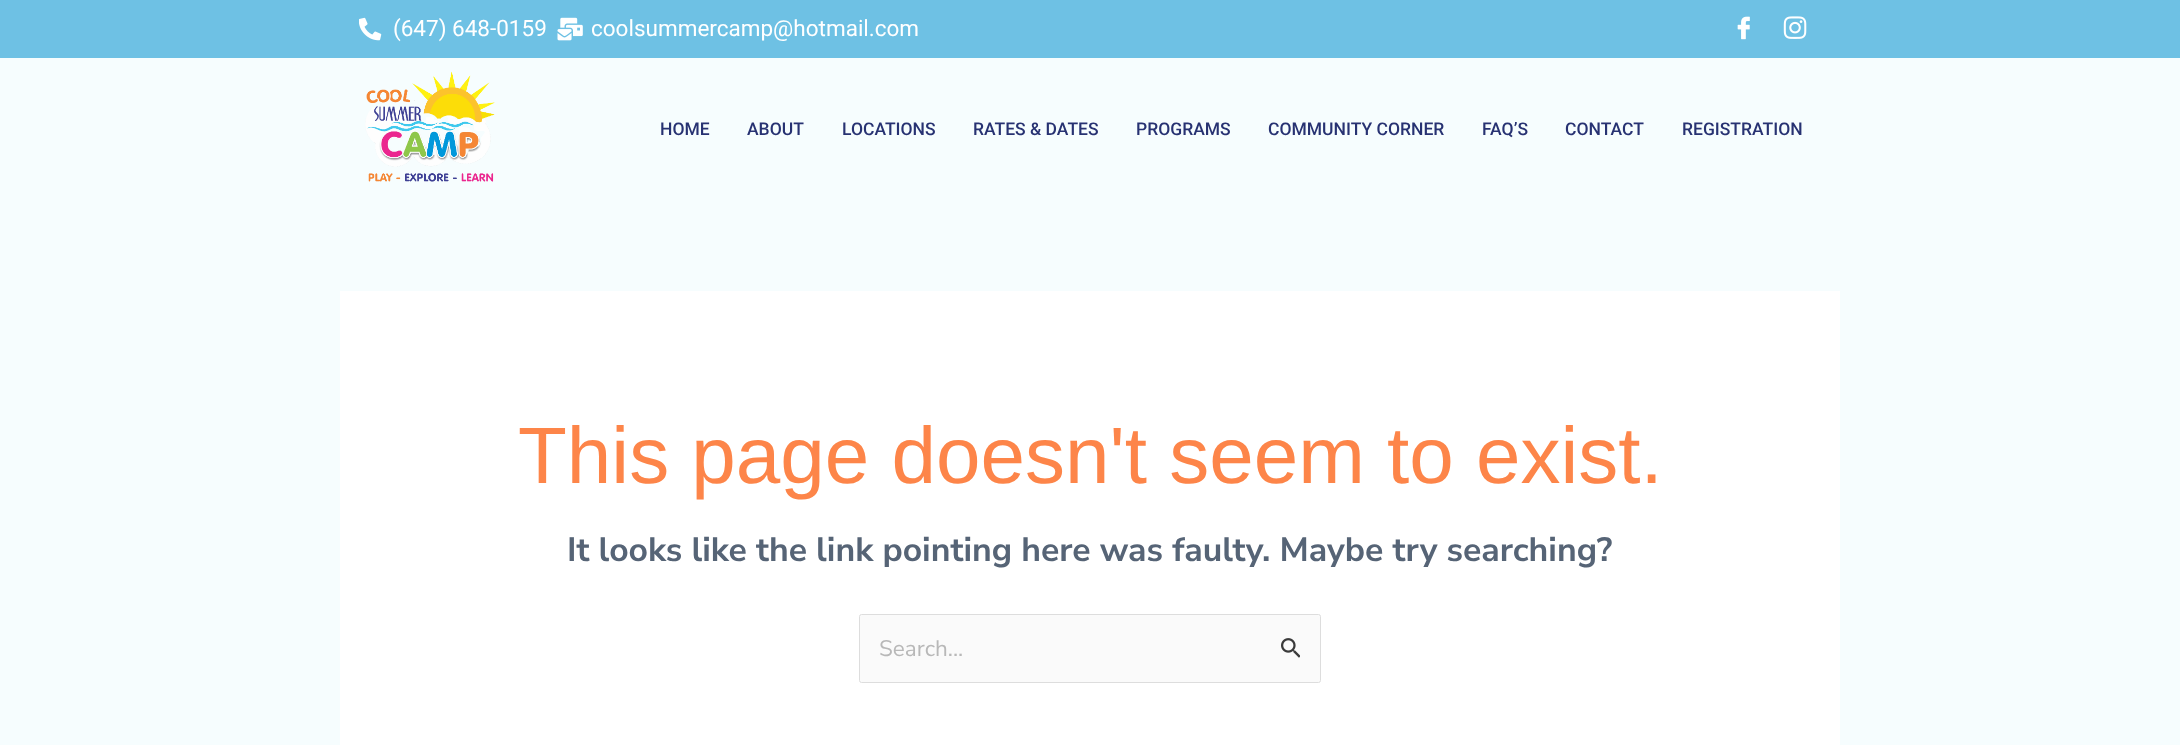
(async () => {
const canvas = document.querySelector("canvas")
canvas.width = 2180
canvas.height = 745
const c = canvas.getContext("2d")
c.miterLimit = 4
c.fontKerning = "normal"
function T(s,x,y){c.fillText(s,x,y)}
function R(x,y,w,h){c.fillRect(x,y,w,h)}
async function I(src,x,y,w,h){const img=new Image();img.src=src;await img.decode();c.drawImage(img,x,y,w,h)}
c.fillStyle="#f6fdfe"
R(0,0,2180,745)
c.fillStyle="#6ec1e4"
R(0,0,2180,58)
await I("1.png",359,17,23,24)
c.font="22.5px Roboto"
c.fillStyle="#fff"
T("(647) 648-0159",393,36)
await I("2.png",557,17,26,24)
T("coolsummercamp@hotmail.com",591,36)
await I("3.png",1737,16,13,24)
await I("4.png",1783,16,24,23)
await I("5.png",365,71,130,111)
c.font="500 17.5px Roboto"
c.fillStyle="#273272"
T("HOME",660,135)
T("ABOUT",747,135)
T("LOCATIONS",842,135)
T("RATES & DATES",973,135)
T("PROGRAMS",1136,135)
T("COMMUNITY CORNER",1268,135)
T("FAQ’S",1482,135)
T("CONTACT",1565,135)
T("REGISTRATION",1682,135)
c.fillStyle="#fff"
R(340,291,1500,454)
c.font="80px Liberation Sans"
c.fillStyle="#fd8549"
T("This page doesn't seem to exist.",518,483)
c.font="bold 33.75px Nunito Sans"
c.fillStyle="#566476"
T("It looks like the link pointing here was faulty. Maybe try searching?",567,561)
c.fillStyle="#fafafa"
c.beginPath()
c.roundRect(859.5,614.5,461,68,2)
c.fill()
c.strokeStyle="#ddd"
c.stroke()
c.font="22.5px Nunito Sans"
c.fillStyle="#b8b8b8"
T("Search...",879,656)
await I("6.png",1281,638,19,20)
})()
